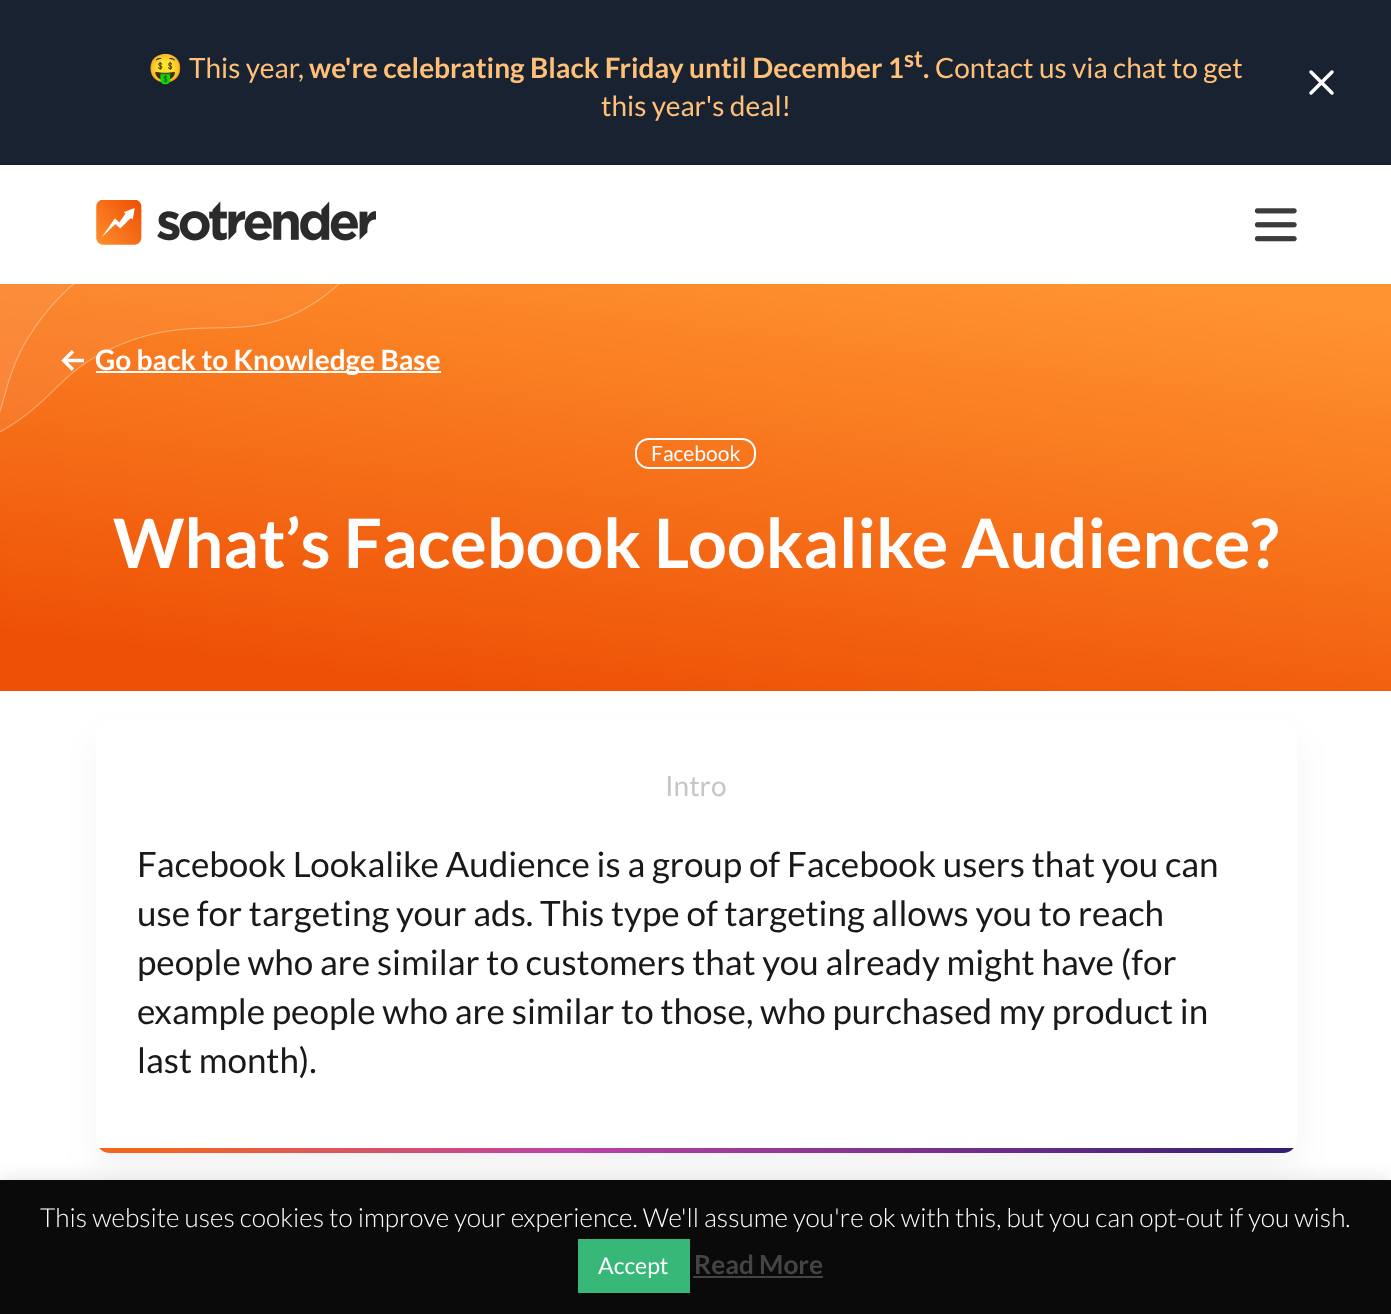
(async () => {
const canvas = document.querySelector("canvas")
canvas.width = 1391
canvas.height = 1314
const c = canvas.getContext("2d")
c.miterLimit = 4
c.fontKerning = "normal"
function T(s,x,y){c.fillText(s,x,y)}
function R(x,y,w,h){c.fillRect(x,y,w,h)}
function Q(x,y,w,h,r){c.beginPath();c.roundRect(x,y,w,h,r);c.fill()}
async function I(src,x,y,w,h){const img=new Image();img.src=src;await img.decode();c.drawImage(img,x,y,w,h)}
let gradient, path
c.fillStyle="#fff"
R(0,0,1391,1314)
c.fillStyle="#182230"
R(0,0,1391,163)
c.fillStyle="#161f2b"
R(0,163,1391,2)
c.font="28px Noto Color Emoji"
c.fillStyle="#ffc179"
T("🤑",148,78)
c.font="28px Lato"
T("This year,",189,78)
c.font="bold 28px Lato"
T("we're celebrating Black Friday until December 1",309,78)
c.font="bold 23px Lato"
T("st",904,67)
c.font="bold 28px Lato"
T(".",923,78)
c.font="28px Lato"
T("Contact us via chat to get",935,78)
T("this year's deal!",601,116)
path = new Path2D("M1332 72l-21 21m0-21l21 21")
c.strokeStyle="#fff"
c.lineWidth=3.5
c.lineCap="round"
c.lineJoin="round"
c.stroke(path)
await I("1.png",96,200,280,45)
await I("2.png",1255,208,42,34)
await I("3.png",0,284,1391,407)
await I("4.png",61,350,23,21)
c.fillStyle="#fefefe"
R(96,371,345,2)
c.font="bold 28px Lato"
T("Go back to Knowledge Base",95,370)
c.beginPath()
c.roundRect(636,439,119,29,13)
c.strokeStyle="#fefefe"
c.lineWidth=2
c.lineJoin="miter"
c.stroke()
c.font="21px Lato"
T("Facebook",651,461)
c.font="bold 68.25px Lato"
T("What’s Facebook Lookalike Audience?",113,568)
c.fillStyle="#0000000d"
c.filter="blur(17.5px)"
c.beginPath()
c.roundRect(98,739,1197,430,12)
c.fill()
c.filter="none"
c.fillStyle="#fff"
Q(96,719,1201,434,14)
c.font="28px Lato"
c.fillStyle="#c6c5c7"
T("Intro",665,796)
c.font="35px Lato"
c.fillStyle="#191919"
T("Facebook Lookalike Audience is a group of Facebook users that you can",137,877)
T("use for targeting your ads. This type of targeting allows you to reach",137,926)
T("people who are similar to customers that you already might have (for",137,975)
T("example people who are similar to those, who purchased my product in",137,1024)
T("last month).",137,1073)
c.save()
c.beginPath()
c.roundRect(96,719,1201,434,14)
c.clip()
gradient = c.createLinearGradient(98,1119,1335,1184)
gradient.addColorStop(.05,"#f26622")
gradient.addColorStop(.38,"#bc43a6")
gradient.addColorStop(1,"#2c1c6f")
c.fillStyle = gradient
c.beginPath()
c.roundRect(96,1148,1201,5,[0,0,5,5])
c.fill()
c.restore()
c.fillStyle="#acabab4d"
c.filter="blur(9px)"
c.beginPath()
c.rect(0,1178,1391,135)
c.fill()
c.filter="none"
c.fillStyle="#0a0a0a"
R(0,1180,1391,134)
c.font="300 26.25px Lato"
c.fillStyle="#fefefe"
T("This website uses cookies to improve your experience. We'll assume you're ok with this, but you can opt-out if you wish.",40,1227)
c.fillStyle="#38b878"
R(578,1239,112,54)
c.font="23px Lato"
c.fillStyle="#fefefe"
T("Accept",598,1274)
c.font="bold 26.25px Lato"
c.fillStyle="#444"
T("Read More",694,1274)
R(693,1276,130,2)
})()
